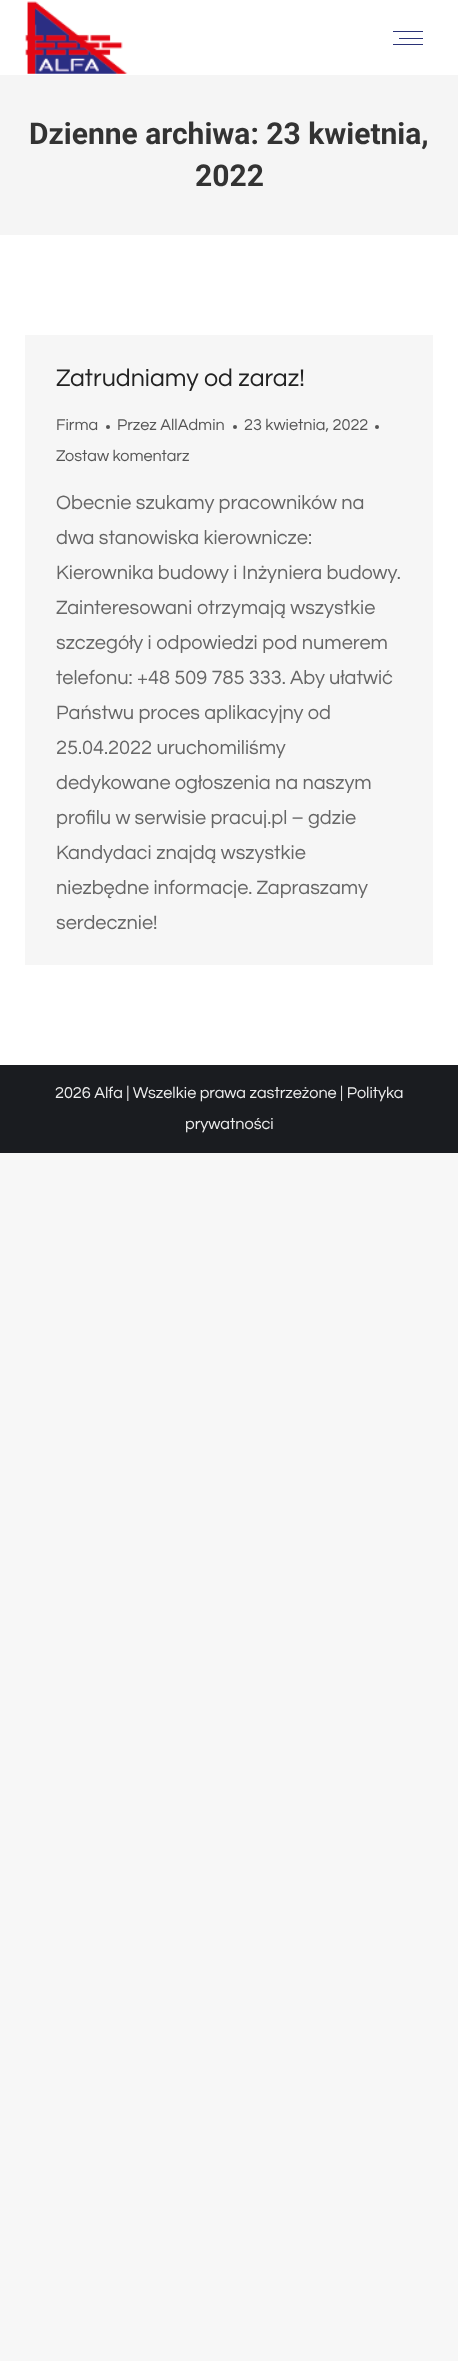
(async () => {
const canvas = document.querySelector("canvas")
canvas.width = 458
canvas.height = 2361
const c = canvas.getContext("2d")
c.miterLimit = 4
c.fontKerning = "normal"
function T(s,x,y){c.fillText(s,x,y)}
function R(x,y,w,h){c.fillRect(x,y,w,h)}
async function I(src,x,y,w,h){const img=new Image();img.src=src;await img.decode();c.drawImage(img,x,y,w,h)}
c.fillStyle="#f7f7f7"
R(0,0,458,2361)
c.fillStyle="#fff"
R(0,0,458,1065)
await I("1.png",25,1,103,73)
c.fillStyle="#2a3276"
R(393,31,30,1)
R(399,38,24,1)
R(393,44,30,1)
c.fillStyle="#f5f5f5"
R(0,75,458,160)
c.font="bold 30px Roboto"
c.fillStyle="#333"
T("Dzienne archiwa: 23 kwietnia,",29,144)
T("2022",195,186)
c.fillStyle="#f6f6f6"
R(25,335,408,630)
c.font="25px Questrial"
c.fillStyle="#222"
T("Zatrudniamy od zaraz!",56,386)
c.font="16.25px Questrial"
c.fillStyle="#555"
T("Firma",56,430)
c.beginPath()
c.arc(108,427,2,0,7)
c.fill()
T("Przez AllAdmin",117,430)
c.beginPath()
c.arc(235,427,2,0,7)
c.fill()
T("23 kwietnia, 2022",244,430)
c.beginPath()
c.arc(377,427,2,0,7)
c.fill()
T("Zostaw komentarz",56,461)
c.font="20px Questrial"
c.fillStyle="#666"
T("Obecnie szukamy pracowników na",56,509)
T("dwa stanowiska kierownicze:",56,544)
T("Kierownika budowy i Inżyniera budowy.",56,579)
T("Zainteresowani otrzymają wszystkie",56,614)
T("szczegóły i odpowiedzi pod numerem",56,649)
T("telefonu: +48 509 785 333. Aby ułatwić",56,684)
T("Państwu proces aplikacyjny od",56,719)
T("25.04.2022 uruchomiliśmy",56,754)
T("dedykowane ogłoszenia na naszym",56,789)
T("profilu w serwisie pracuj.pl – gdzie",56,824)
T("Kandydaci znajdą wszystkie",56,859)
T("niezbędne informacje. Zapraszamy",56,894)
T("serdecznie!",56,929)
c.fillStyle="#1a1c20"
R(0,1065,458,88)
c.font="16.25px Questrial"
c.fillStyle="#eee"
T("2026 Alfa | Wszelkie prawa zastrzeżone | Polityka",55,1098)
T("prywatności",185,1129)
})()
